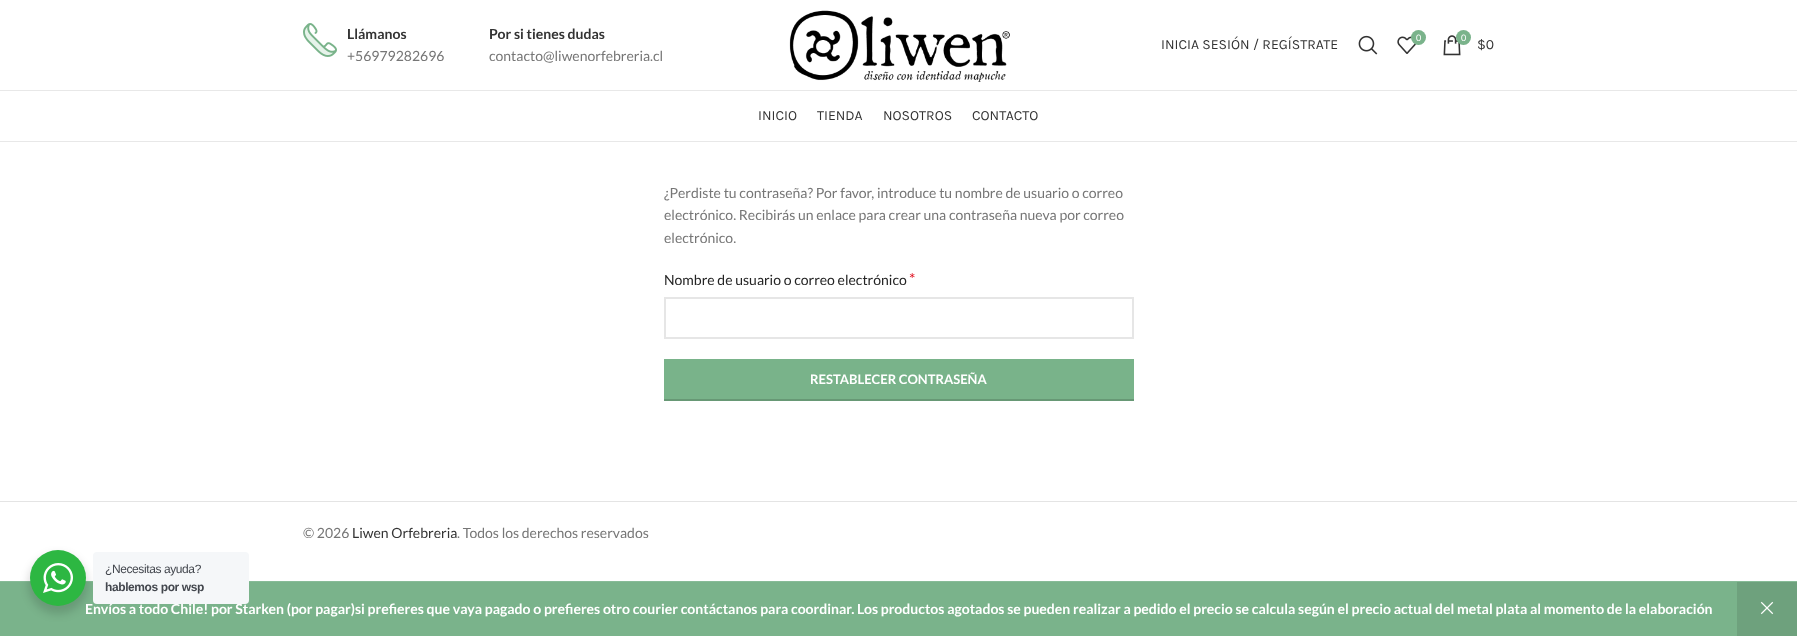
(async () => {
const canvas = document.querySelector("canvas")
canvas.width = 1797
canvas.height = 636
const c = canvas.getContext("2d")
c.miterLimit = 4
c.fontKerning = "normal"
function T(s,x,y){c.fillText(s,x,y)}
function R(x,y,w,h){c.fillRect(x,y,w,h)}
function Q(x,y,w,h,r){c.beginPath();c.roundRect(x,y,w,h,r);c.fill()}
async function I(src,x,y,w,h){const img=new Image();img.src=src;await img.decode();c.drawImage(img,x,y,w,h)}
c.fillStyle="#fff"
R(0,0,1797,636)
c.fillStyle="#e8e8e8"
R(0,90,1797,1)
await I("1.png",303,23,34,34)
c.font="bold 14px Lato"
c.fillStyle="#333"
T("Llámanos",347,39)
c.font="14px Lato"
c.fillStyle="#767676"
T("+56979282696",347,61)
c.font="bold 14px Lato"
c.fillStyle="#333"
T("Por si tienes dudas",489,39)
c.font="14px Lato"
c.fillStyle="#767676"
T("contacto@liwenorfebreria.cl",489,61)
await I("2.png",789,10,221,72)
c.font="14px Karla"
c.fillStyle="#333"
T("INICIA SESIÓN / REGÍSTRATE",1161,49)
await I("3.png",1358,35,20,20)
await I("4.png",1397,36,20,18)
c.fillStyle="#7ab38b"
c.beginPath()
c.arc(1418.5,37.5,7.5,0,7)
c.fill()
c.font="9px Lato"
c.fillStyle="#fff"
T("0",1416,41)
await I("5.png",1443,35,18,21)
c.fillStyle="#7ab38b"
c.beginPath()
c.arc(1463.5,37.5,7.5,0,7)
c.fill()
c.fillStyle="#fff"
T("0",1461,41)
c.font="14px Karla"
c.fillStyle="#333"
T("$0",1477,49)
c.fillStyle="#e8e8e8"
R(0,141,1797,1)
c.fillStyle="#333"
T("INICIO",758,120)
T("TIENDA",817,120)
T("NOSOTROS",883,120)
T("CONTACTO",972,120)
c.font="14px Lato"
c.fillStyle="#767676"
T("¿Perdiste tu contraseña? Por favor, introduce tu nombre de usuario o correo",664,198)
T("electrónico. Recibirás un enlace para crear una contraseña nueva por correo",664,220)
T("electrónico.",664,243)
c.fillStyle="#242424"
T("Nombre de usuario o correo electrónico",664,285)
c.font="16px Lato"
c.fillStyle="#e01020"
T("*",909,285)
c.strokeStyle="#e6e6e6"
c.lineWidth=2
c.strokeRect(665,298,468,40)
c.fillStyle="#79b38a"
R(664,359,470,40)
c.fillStyle="#679875"
R(664,399,470,2)
c.font="bold 13px Lato"
c.fillStyle="#fff"
T("RESTABLECER CONTRASEÑA",810,384)
c.fillStyle="#e4e4e4"
R(0,501,1797,1)
c.font="14px Lato"
c.fillStyle="#767676"
T("© 2026",303,538)
c.fillStyle="#333"
T("Liwen Orfebreria",352,538)
c.fillStyle="#767676"
T(". Todos los derechos reservados",457,538)
c.fillStyle="#7ab38b"
R(0,582,1737,54)
c.fillStyle="#87bb97"
R(0,581,1797,1)
c.fillStyle="#00000024"
c.filter="blur(4px)"
c.beginPath()
c.roundRect(28,554,60,60,30)
c.fill()
c.filter="none"
c.font="bold 14px Lato"
c.fillStyle="#fff"
T("Envíos a todo Chile! por Starken (por pagar)si prefieres que vaya pagado o prefieres otro courier contáctanos para coordinar. Los productos agotados se pueden realizar a pedido el precio se calcula según el precio actual del metal plata al momento de la elaboración",85,614)
c.fillStyle="#2db742"
c.beginPath()
c.arc(58,578,28,0,7)
c.fill()
await I("6.png",43,563,30,30)
c.fillStyle="#f5f7f9"
Q(93,552,156,52,4)
c.letterSpacing="-0.4px"
c.font="12px Liberation Sans"
c.fillStyle="#43474e"
T("¿Necesitas ayuda?",105,573)
c.font="bold 12px Liberation Sans"
T("hablemos por wsp",105,591)
c.fillStyle="#6ea17d"
R(1737,582,60,54)
await I("7.png",1760,601,14,14)
})()
